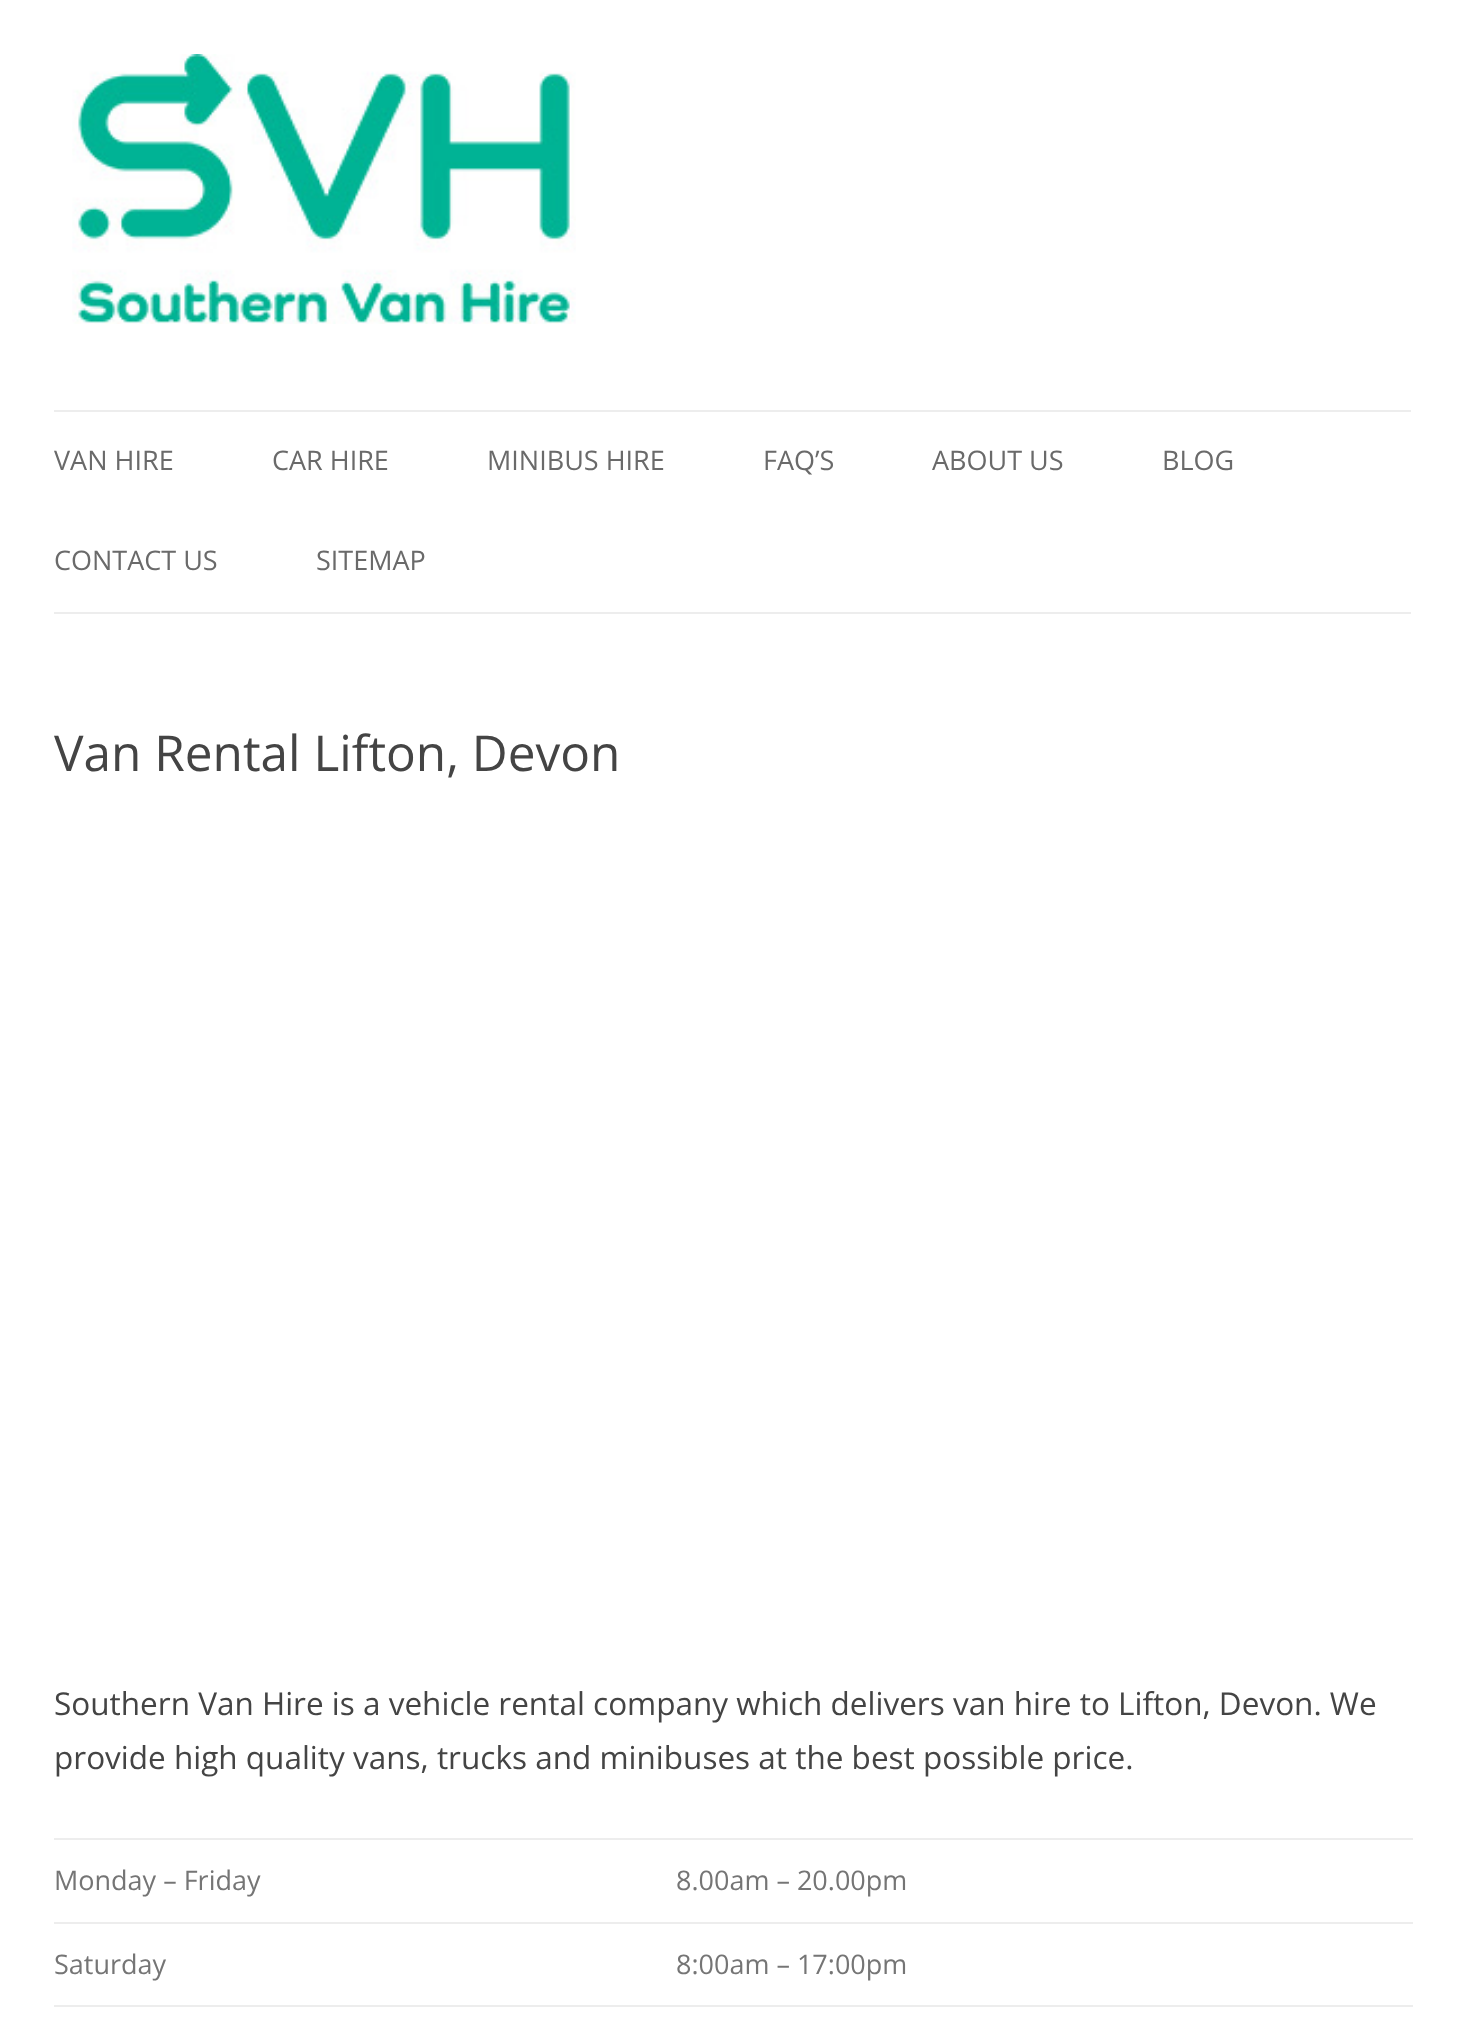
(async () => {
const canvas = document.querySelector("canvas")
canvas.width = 1464
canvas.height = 2043
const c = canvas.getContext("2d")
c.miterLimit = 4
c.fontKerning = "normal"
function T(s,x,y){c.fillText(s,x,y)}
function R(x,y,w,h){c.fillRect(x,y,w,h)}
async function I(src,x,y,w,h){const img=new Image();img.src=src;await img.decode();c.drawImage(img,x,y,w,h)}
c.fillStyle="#fff"
R(0,0,1464,2043)
await I("1.png",72,54,504,270)
c.fillStyle="#ededed"
R(54,410,1357,2)
R(54,612,1357,2)
c.font="27px Open Sans"
c.fillStyle="#6a6a6a"
T("VAN HIRE",54,470)
T("CAR HIRE",272,470)
T("MINIBUS HIRE",487,470)
T("FAQ’S",763,470)
T("ABOUT US",932,470)
T("BLOG",1162,470)
T("CONTACT US",54,570)
T("SITEMAP",316,570)
c.font="49.5px Open Sans"
c.fillStyle="#444"
T("Van Rental Lifton, Devon",54,771)
c.font="31.5px Open Sans"
T("Southern Van Hire is a vehicle rental company which delivers van hire to Lifton, Devon. We",54,1715)
T("provide high quality vans, trucks and minibuses at the best possible price.",54,1769)
c.font="27px Open Sans"
c.fillStyle="#757575"
T("Monday – Friday",54,1890)
c.fillStyle="#ededed"
R(54,1838,1359,2)
c.fillStyle="#757575"
T("8.00am – 20.00pm",676,1890)
T("Saturday",54,1974)
c.fillStyle="#ededed"
R(54,1922,1359,2)
c.fillStyle="#757575"
T("8:00am – 17:00pm",676,1974)
c.fillStyle="#ededed"
R(54,2005,1359,2)
})()
